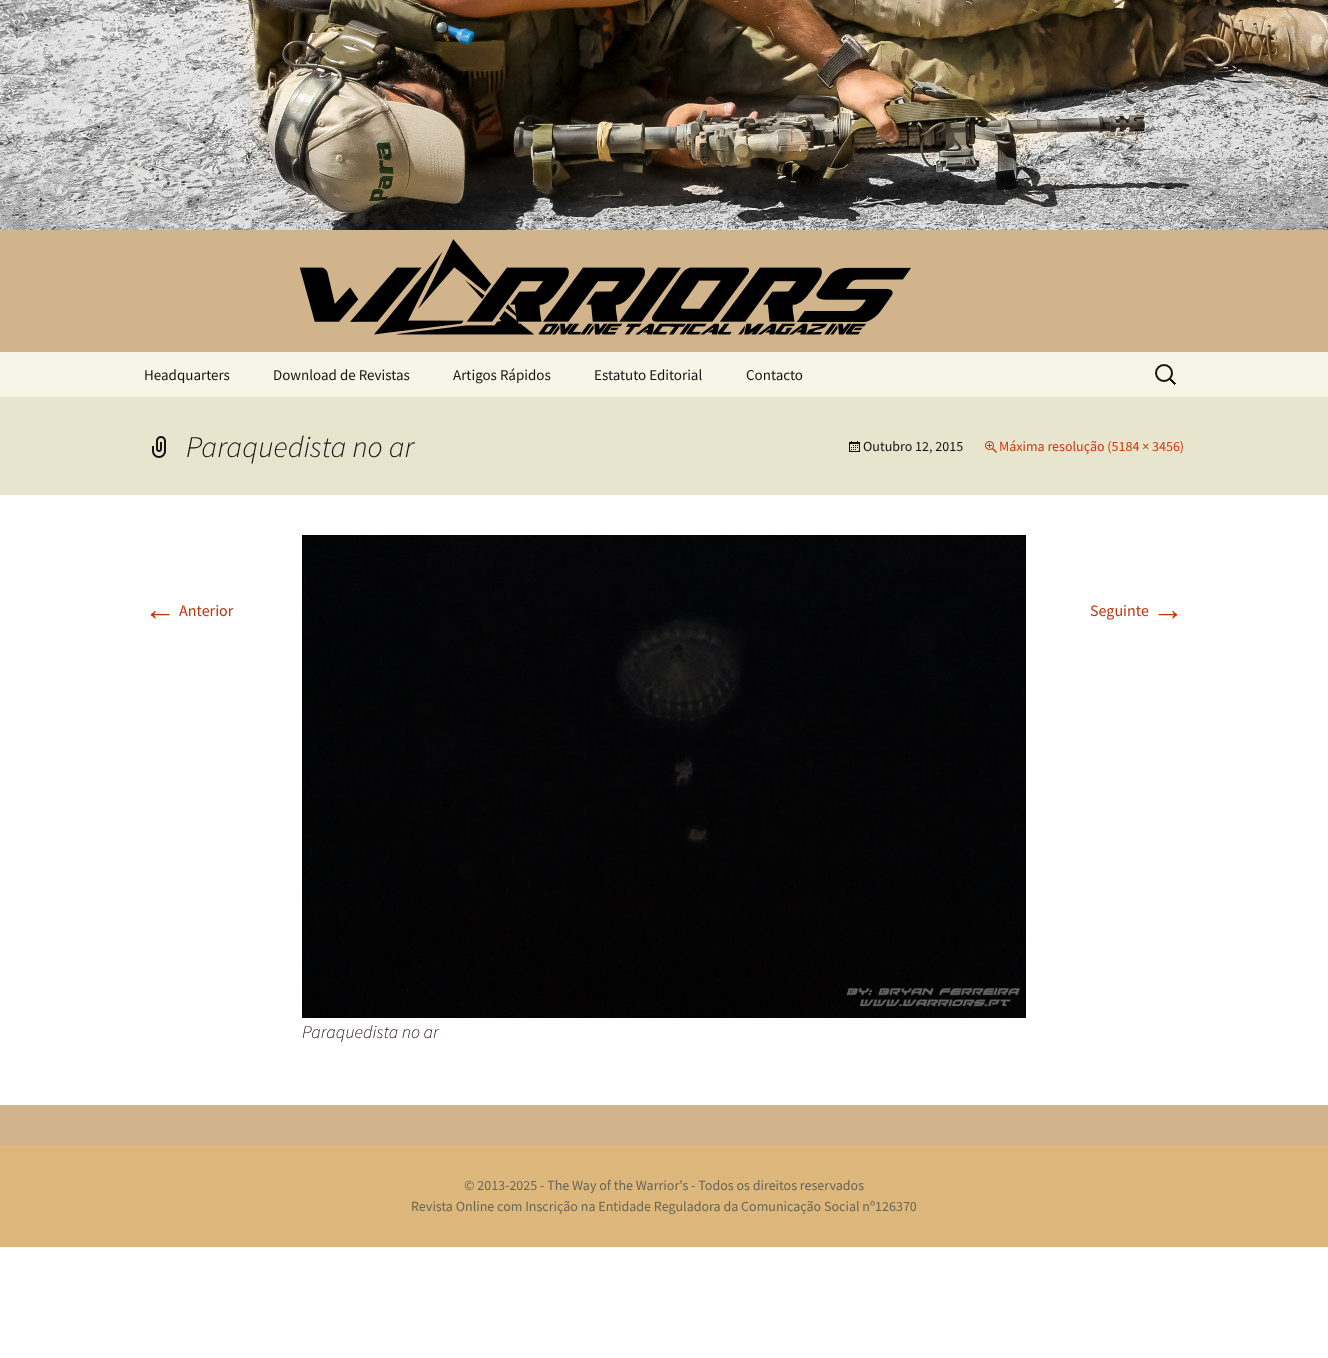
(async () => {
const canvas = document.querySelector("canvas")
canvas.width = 1328
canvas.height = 1358
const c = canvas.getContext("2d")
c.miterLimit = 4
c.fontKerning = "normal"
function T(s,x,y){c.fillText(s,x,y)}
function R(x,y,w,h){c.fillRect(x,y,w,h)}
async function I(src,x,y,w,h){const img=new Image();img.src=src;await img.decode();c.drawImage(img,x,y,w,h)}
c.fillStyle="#fff"
R(0,0,1328,1358)
c.fillStyle="#d2b48c"
R(0,230,1328,915)
await I("1.png",0,0,1328,230)
await I("2.png",299,239,612,96)
c.fillStyle="#f7f5e7"
R(0,352,1328,45)
c.font="15px Source Sans Pro"
c.fillStyle="#141412"
T("Headquarters",144,380)
T("Download de Revistas",273,380)
T("Artigos Rápidos",453,380)
T("Estatuto Editorial",594,380)
T("Contacto",746,380)
await I("3.png",1155,364,21,21)
c.fillStyle="#e8e5ce"
R(0,397,1328,98)
await I("4.png",152,436,14,22)
c.font="italic 300 30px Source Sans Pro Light"
c.fillStyle="#141412"
T("Paraquedista no ar",186,457)
await I("5.png",849,441,11,11)
c.font="14px Source Sans Pro"
T("Outubro 12, 2015",863,451)
await I("6.png",985,441,12,12)
c.fillStyle="#ca3c08"
T("Máxima resolução (5184 × 3456)",999,451)
c.fillStyle="#fff"
R(0,495,1328,610)
c.font="32px Liberation Sans"
c.fillStyle="#bc360a"
T("←",144,620)
c.font="16px Source Sans Pro"
T("Anterior",179,616)
T("Seguinte",1090,616)
c.font="32px Liberation Sans"
T("→",1152,620)
await I("7.png",302,535,724,483)
c.font="italic 300 18px Source Sans Pro Light"
c.fillStyle="#220e10"
T("Paraquedista no ar",302,1038)
c.fillStyle="#ddb77b"
R(0,1145,1328,102)
c.font="14px Source Sans Pro"
c.fillStyle="#686758"
T("© 2013-2025 - The Way of the Warrior's - Todos os direitos reservados",464,1190)
T("Revista Online com Inscrição na Entidade Reguladora da Comunicação Social nº126370",411,1211)
})()
